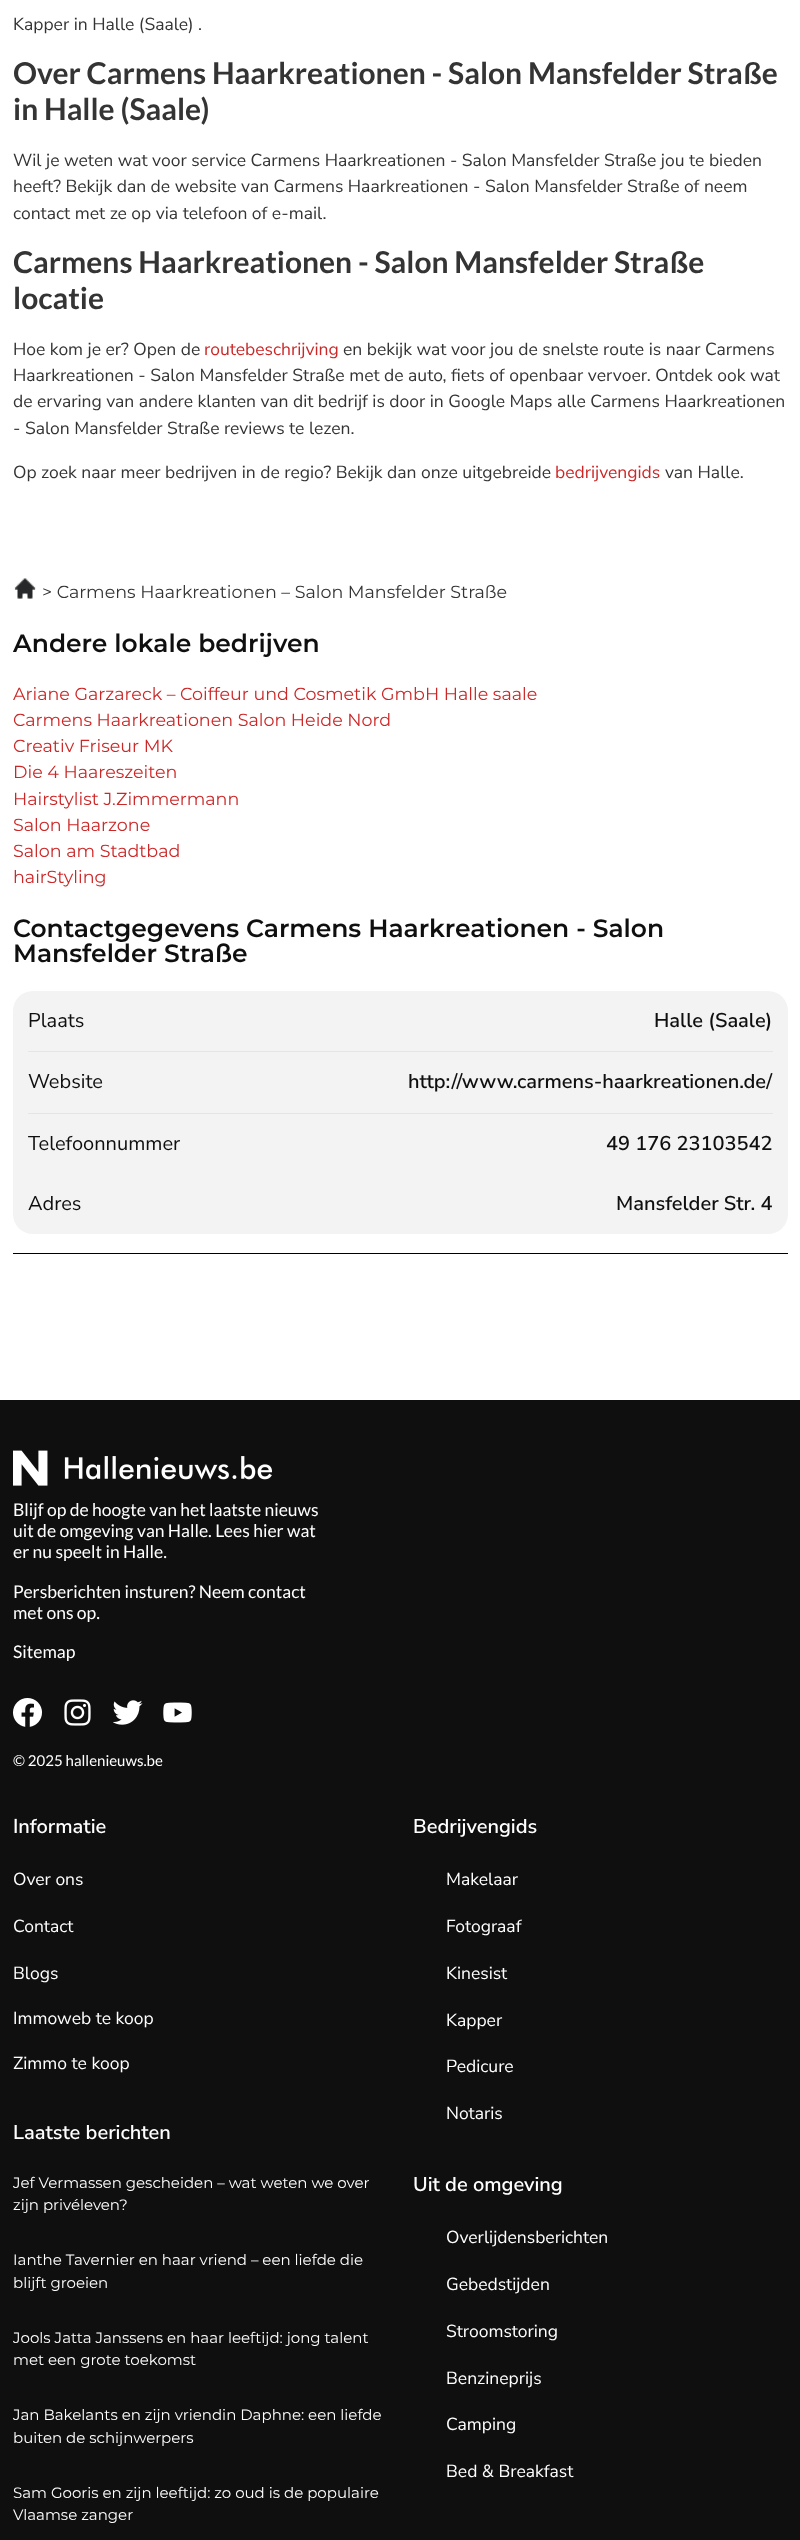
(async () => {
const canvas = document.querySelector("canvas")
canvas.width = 800
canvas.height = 2540
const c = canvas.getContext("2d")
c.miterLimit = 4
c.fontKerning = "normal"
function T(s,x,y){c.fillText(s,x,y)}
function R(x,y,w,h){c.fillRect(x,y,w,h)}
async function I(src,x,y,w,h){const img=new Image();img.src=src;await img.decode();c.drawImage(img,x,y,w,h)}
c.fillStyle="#fff"
R(0,0,800,2540)
c.font="17.5px Nunito Sans"
c.fillStyle="#343434"
T("Kapper in Halle (Saale) .",13,30)
c.font="bold 30px Lato"
T("Over Carmens Haarkreationen - Salon Mansfelder Straße",13,84)
T("in Halle (Saale)",13,120)
c.font="17.5px Nunito Sans"
T("Wil je weten wat voor service Carmens Haarkreationen - Salon Mansfelder Straße jou te bieden",13,166)
T("heeft? Bekijk dan de website van Carmens Haarkreationen - Salon Mansfelder Straße of neem",13,192)
T("contact met ze op via telefoon of e-mail.",13,219)
c.font="bold 30px Lato"
T("Carmens Haarkreationen - Salon Mansfelder Straße",13,273)
T("locatie",13,309)
c.font="17.5px Nunito Sans"
T("Hoe kom je er? Open de",13,355)
c.fillStyle="#cc2727"
T("routebeschrijving",204,355)
c.fillStyle="#343434"
T("en bekijk wat voor jou de snelste route is naar Carmens",343,355)
T("Haarkreationen - Salon Mansfelder Straße met de auto, fiets of openbaar vervoer. Ontdek ook wat",13,381)
T("de ervaring van andere klanten van dit bedrijf is door in Google Maps alle Carmens Haarkreationen",13,407)
T("- Salon Mansfelder Straße reviews te lezen.",13,434)
T("Op zoek naar meer bedrijven in de regio? Bekijk dan onze uitgebreide",13,478)
c.fillStyle="#cc2727"
T("bedrijvengids",555,478)
c.fillStyle="#343434"
T("van Halle.",665,478)
await I("1.png",14,578,22,21)
c.font="17.5px Montserrat"
T("> Carmens Haarkreationen – Salon Mansfelder Straße",42,598)
c.font="600 25px Montserrat"
c.fillStyle="#0f0f0f"
T("Andere lokale bedrijven",13,652)
c.font="17.5px Montserrat"
c.fillStyle="#cc2727"
T("Ariane Garzareck – Coiffeur und Cosmetik GmbH Halle saale",13,700)
T("Carmens Haarkreationen Salon Heide Nord",13,726)
T("Creativ Friseur MK",13,752)
T("Die 4 Haareszeiten",13,778)
T("Hairstylist J.Zimmermann",13,805)
T("Salon Haarzone",13,831)
T("Salon am Stadtbad",13,857)
T("hairStyling",13,883)
c.font="600 25px Montserrat"
c.fillStyle="#0f0f0f"
T("Contactgegevens Carmens Haarkreationen - Salon",13,937)
T("Mansfelder Straße",13,962)
c.fillStyle="#f3f3f3"
c.beginPath()
c.roundRect(13,991,775,62,[20,20,0,0])
c.fill()
c.fillStyle="#e5e5e5"
R(28,1051,745,1)
c.font="20px Nunito Sans"
c.fillStyle="#0f0f0f"
T("Plaats",28,1027)
c.font="600 20px Nunito Sans"
T("Halle (Saale)",654,1027)
c.fillStyle="#f3f3f3"
R(13,1053,775,121)
c.fillStyle="#e5e5e5"
R(28,1113,745,1)
c.font="20px Nunito Sans"
c.fillStyle="#0f0f0f"
T("Website",28,1088)
c.font="600 20px Nunito Sans"
T("http://www.carmens-haarkreationen.de/",408,1088)
c.font="20px Nunito Sans"
T("Telefoonnummer",28,1150)
c.font="600 20px Nunito Sans"
T("49 176 23103542",606,1150)
c.fillStyle="#f3f3f3"
c.beginPath()
c.roundRect(13,1174,775,60,[0,0,20,20])
c.fill()
c.font="20px Nunito Sans"
c.fillStyle="#0f0f0f"
T("Adres",28,1210)
c.font="600 20px Nunito Sans"
T("Mansfelder Str. 4",616,1210)
c.fillStyle="#000"
R(13,1253,775,1)
c.fillStyle="#0f0f0f"
R(0,1400,800,1140)
await I("2.png",13,1450,259,36)
c.font="17.5px Lato"
c.fillStyle="#fff"
T("Blijf op de hoogte van het laatste nieuws",13,1516)
T("uit de omgeving van Halle. Lees hier wat",13,1537)
T("er nu speelt in Halle.",13,1558)
T("Persberichten insturen? Neem contact",13,1598)
T("met ons op.",13,1619)
T("Sitemap",13,1658)
await I("3.png",13,1698,29,29)
await I("4.png",64,1699,27,27)
await I("5.png",113,1700,30,25)
await I("6.png",163,1702,29,21)
c.font="15px Lato"
T("© 2025 hallenieuws.be",13,1766)
c.font="600 20px Nunito Sans"
T("Informatie",13,1833)
c.font="17.5px Nunito Sans"
T("Over ons",13,1885)
T("Contact",13,1932)
T("Blogs",13,1979)
T("Immoweb te koop",13,2024)
T("Zimmo te koop",13,2069)
c.font="600 20px Nunito Sans"
T("Laatste berichten",13,2139)
c.font="15px Montserrat"
T("Jef Vermassen gescheiden – wat weten we over",13,2188)
T("zijn privéleven?",13,2210)
T("Ianthe Tavernier en haar vriend – een liefde die",13,2265)
T("blijft groeien",13,2288)
T("Jools Jatta Janssens en haar leeftijd: jong talent",13,2343)
T("met een grote toekomst",13,2365)
T("Jan Bakelants en zijn vriendin Daphne: een liefde",13,2420)
T("buiten de schijnwerpers",13,2443)
T("Sam Gooris en zijn leeftijd: zo oud is de populaire",13,2498)
T("Vlaamse zanger",13,2520)
c.font="600 20px Nunito Sans"
T("Bedrijvengids",413,1833)
c.font="17.5px Nunito Sans"
T("Makelaar",446,1885)
T("Fotograaf",446,1932)
T("Kinesist",446,1979)
T("Kapper",446,2026)
T("Pedicure",446,2072)
T("Notaris",446,2119)
c.font="600 20px Nunito Sans"
T("Uit de omgeving",413,2191)
c.font="17.5px Nunito Sans"
T("Overlijdensberichten",446,2243)
T("Gebedstijden",446,2290)
T("Stroomstoring",446,2337)
T("Benzineprijs",446,2384)
T("Camping",446,2430)
T("Bed & Breakfast",446,2477)
})()
